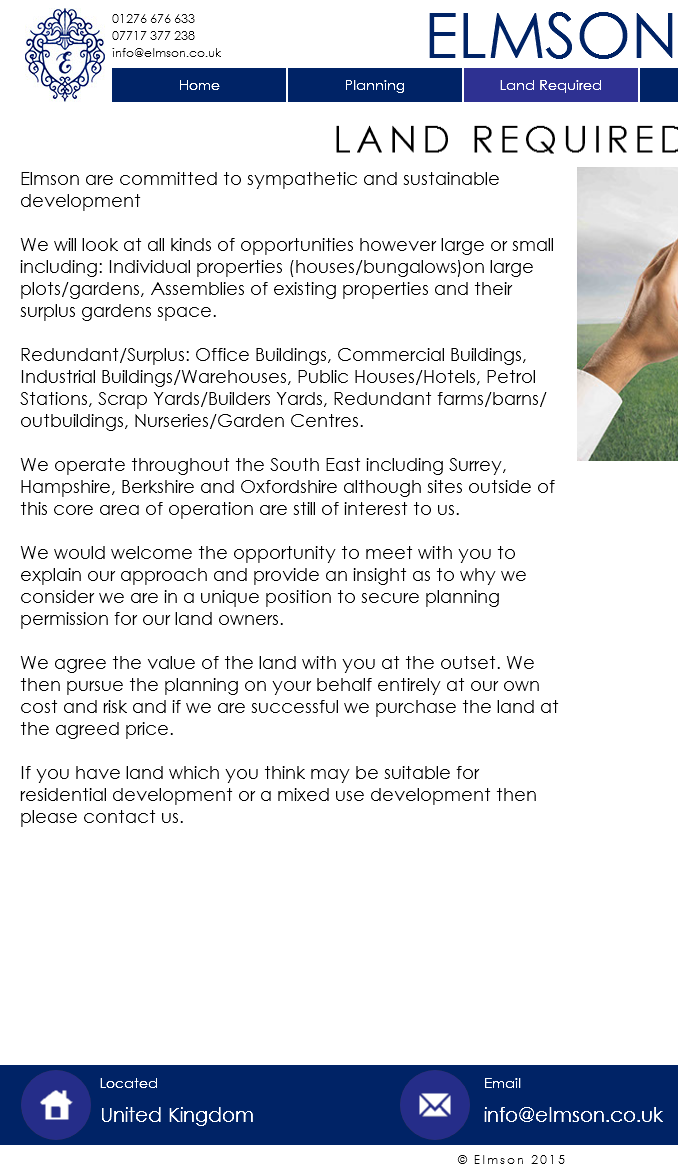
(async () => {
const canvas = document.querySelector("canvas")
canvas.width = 678
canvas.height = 1174
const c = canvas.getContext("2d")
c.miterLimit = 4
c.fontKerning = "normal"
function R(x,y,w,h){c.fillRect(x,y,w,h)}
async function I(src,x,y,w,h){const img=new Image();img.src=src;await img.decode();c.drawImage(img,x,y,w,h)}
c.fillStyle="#fff"
R(0,0,678,1174)
await I("1.png",25,8,80,94)
await I("2.png",112,14,83,26)
await I("3.png",112,48,109,9)
await I("4.png",429,12,244,47)
c.fillStyle="#002366"
R(112,68,174,34)
await I("5.png",180,80,40,10)
R(288,68,174,34)
await I("6.png",346,80,58,13)
c.fillStyle="#2e3192"
R(464,68,174,34)
await I("7.png",500,80,101,13)
c.fillStyle="#002366"
R(640,68,38,34)
await I("8.png",336,125,342,29)
await I("9.png",20,172,539,655)
await I("10.png",577,167,101,294)
R(0,1065,678,80)
c.fillStyle="#303030"
c.beginPath()
c.arc(56,1105,35,0,7)
c.fill()
await I("11.png",21,1070,70,70)
await I("12.png",100,1078,57,10)
await I("13.png",102,1107,151,19)
c.beginPath()
c.arc(435,1105,35,0,7)
c.fill()
await I("14.png",400,1070,70,70)
await I("15.png",485,1078,36,10)
await I("16.png",484,1107,179,15)
await I("17.png",457,1155,108,9)
})()
